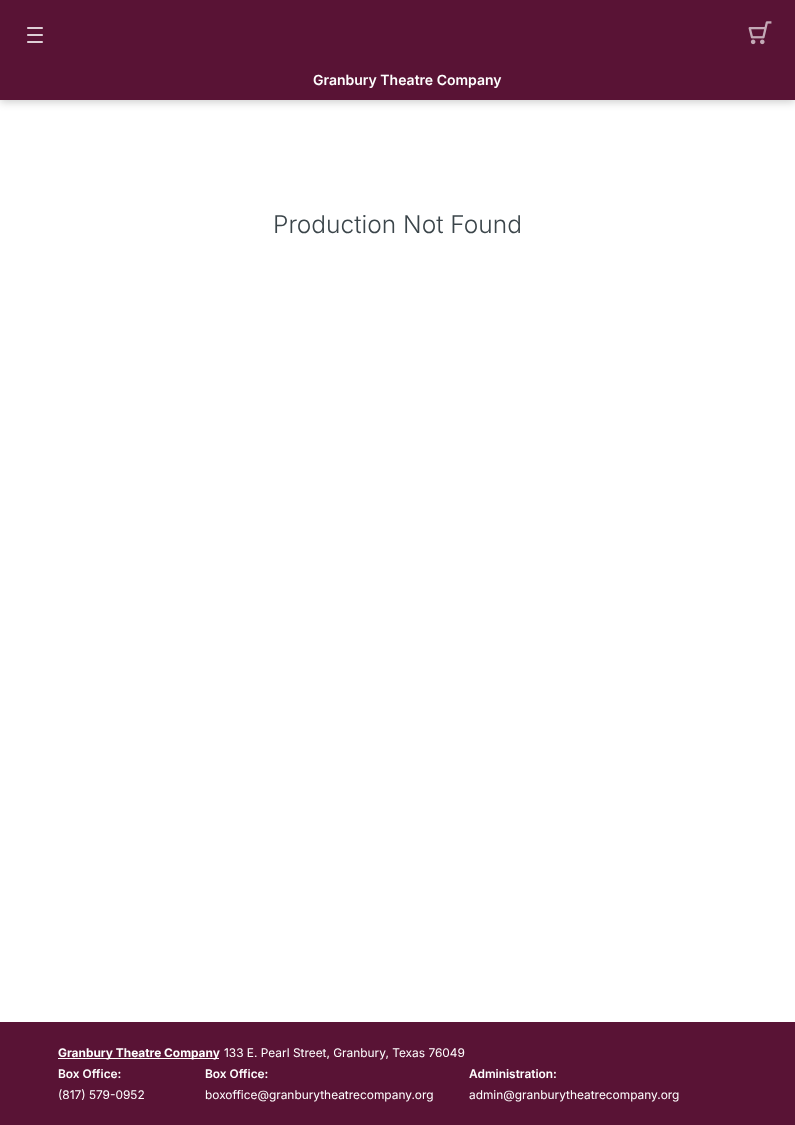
(async () => {
const canvas = document.querySelector("canvas")
canvas.width = 795
canvas.height = 1125
const c = canvas.getContext("2d")
c.miterLimit = 4
c.fontKerning = "normal"
function T(s,x,y){c.fillText(s,x,y)}
function R(x,y,w,h){c.fillRect(x,y,w,h)}
async function I(src,x,y,w,h){const img=new Image();img.src=src;await img.decode();c.drawImage(img,x,y,w,h)}
c.fillStyle="#fff"
R(0,0,795,1125)
c.fillStyle="#00000033"
c.filter="blur(4px)"
c.beginPath()
c.rect(0,2,795,100)
c.fill()
c.filter="none"
c.fillStyle="#591335"
R(0,0,795,100)
await I("1.png",27,27,16,16)
await I("2.png",748,21,24,24)
c.font="600 14px Inter"
c.fillStyle="#fff"
T("Granbury Theatre Company",313,85)
c.font="300 24.5px Inter"
c.fillStyle="#3b454a"
T("Production Not Found",273,233)
c.fillStyle="#591335"
R(0,1022,795,103)
c.fillStyle="#fff"
R(58,1058,161,1)
c.font="bold 11.9px Inter"
T("Granbury Theatre Company",58,1057)
c.font="11.9px Inter"
T("133 E. Pearl Street, Granbury, Texas 76049",224,1057)
c.font="600 11.9px Inter"
T("Box Office:",58,1078)
c.font="11.9px Inter"
T("(817) 579-0952",58,1099)
c.font="600 11.9px Inter"
T("Box Office:",205,1078)
c.font="11.9px Inter"
T("boxoffice@granburytheatrecompany.org",205,1099)
c.font="600 11.9px Inter"
T("Administration:",469,1078)
c.font="11.9px Inter"
T("admin@granburytheatrecompany.org",469,1099)
})()
